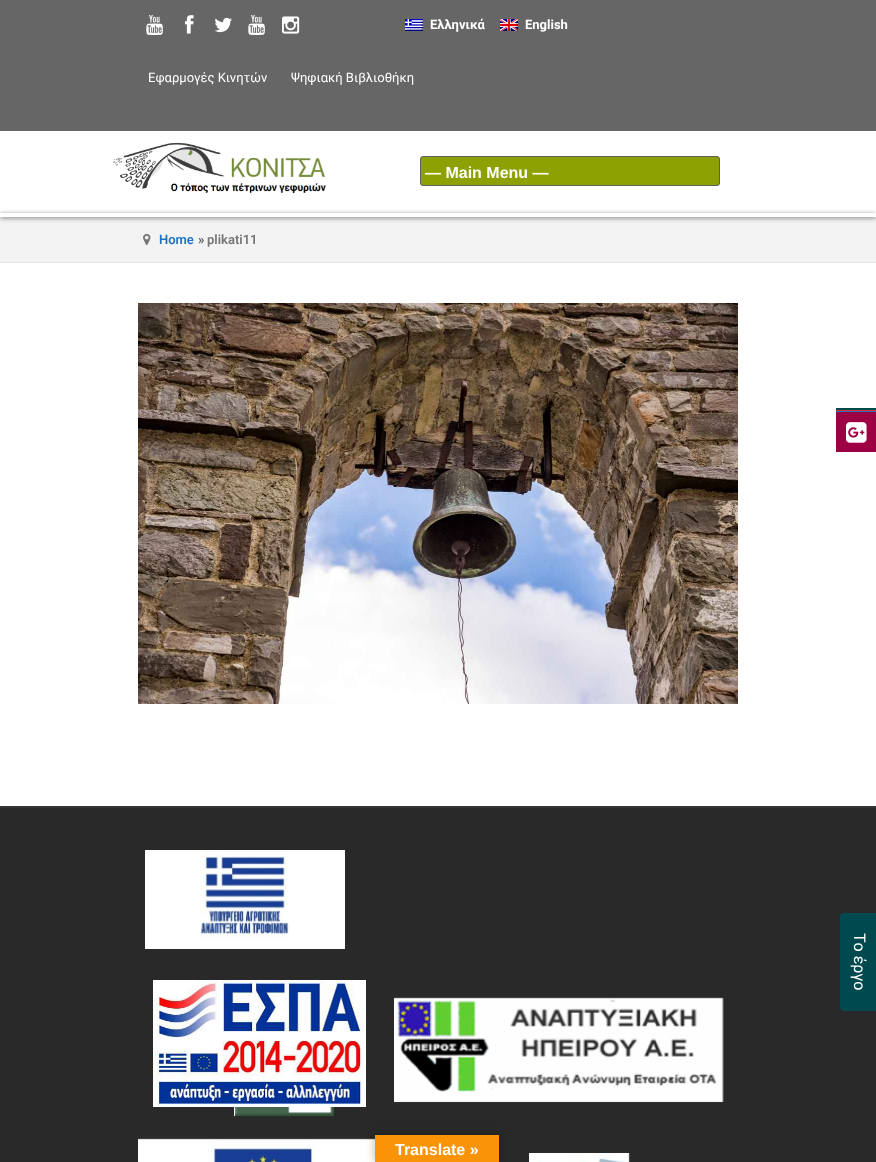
(async () => {
const canvas = document.querySelector("canvas")
canvas.width = 876
canvas.height = 1162
const c = canvas.getContext("2d")
c.miterLimit = 4
c.fontKerning = "normal"
function T(s,x,y){c.fillText(s,x,y)}
function R(x,y,w,h){c.fillRect(x,y,w,h)}
async function I(src,x,y,w,h){const img=new Image();img.src=src;await img.decode();c.drawImage(img,x,y,w,h)}
let path
c.fillStyle="#fff"
R(0,0,876,1162)
c.fillStyle="#666"
R(0,0,876,131)
await I("1.png",146,15,17,20)
await I("2.png",185,15,9,19)
await I("3.png",214,17,18,16)
await I("1.png",248,15,17,20)
await I("4.png",282,16,18,18)
await I("5.png",405,19,18,12)
c.font="bold 13px Roboto"
c.fillStyle="#fff"
T("Ελληνικά",430,29)
await I("6.png",500,19,18,12)
T("English",525,29)
c.font="13px Roboto"
T("Εφαρμογές Κινητών",148,82)
T("Ψηφιακή Βιβλιοθήκη",291,82)
await I("7.png",113,142,214,52)
c.fillStyle="#8da102"
c.beginPath()
c.roundRect(420.5,156.5,299,29,2.5)
c.fill()
c.strokeStyle="#5e5e5e"
c.stroke()
c.font="bold 16px Liberation Sans"
c.fillStyle="#fff"
T("— Main Menu —",425,178)
c.fillStyle="#f3f3f3"
R(0,217,876,45)
c.save()
path = new Path2D("M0 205h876v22h-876zm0 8h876v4h-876z")
c.clip(path,"evenodd")
c.fillStyle="#00000080"
c.filter="blur(2.5px)"
c.beginPath()
c.rect(0,214,876,4)
c.fill()
c.filter="none"
c.restore()
c.fillStyle="#292929"
R(0,808,876,354)
c.fillStyle="#00494f"
path = new Path2D("M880 917v90c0 2-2 4-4 4h-32c-2 0-4-2-4-4v-90c0-2 2-4 4-4h32c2 0 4 2 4 4z")
c.fill(path)
c.font="16px Roboto"
c.fillStyle="#fff"
c.save()
c.translate(854,933)
c.rotate(90 * Math.PI / 180)
c.fillText("Tο έργο",0,0)
c.restore()
c.fillStyle="#e6e6e6"
R(0,262,876,1)
await I("8.png",143,233,8,12)
c.font="600 13px Roboto"
c.fillStyle="#1e73be"
T("Home",159,244)
c.fillStyle="#616161"
T("»",198,244)
c.fillStyle="#757575"
T("plikati11",207,244)
await I("9.png",138,303,600,401)
c.fillStyle="#00494f"
R(836,408,40,2)
c.fillStyle="#d33"
R(836,410,40,1)
c.fillStyle="#1e73be"
R(836,411,40,1)
c.fillStyle="#9e0044"
R(836,412,40,40)
await I("10.png",846,422,21,21)
c.fillStyle="#353535"
R(0,806,876,2)
await I("11.png",145,850,200,99)
await I("12.png",234,1107,100,10)
await I("13.png",153,980,213,127)
await I("14.png",394,997,330,106)
await I("15.png",138,1138,237,24)
await I("16.png",529,1153,101,9)
c.fillStyle="#0000004d"
c.filter="blur(4.5px)"
c.beginPath()
c.rect(375,1135,124,27)
c.fill()
c.filter="none"
c.fillStyle="#f89406"
R(375,1135,124,27)
c.font="bold 16px Liberation Sans"
c.fillStyle="#fff"
T("Translate »",395,1155)
})()
